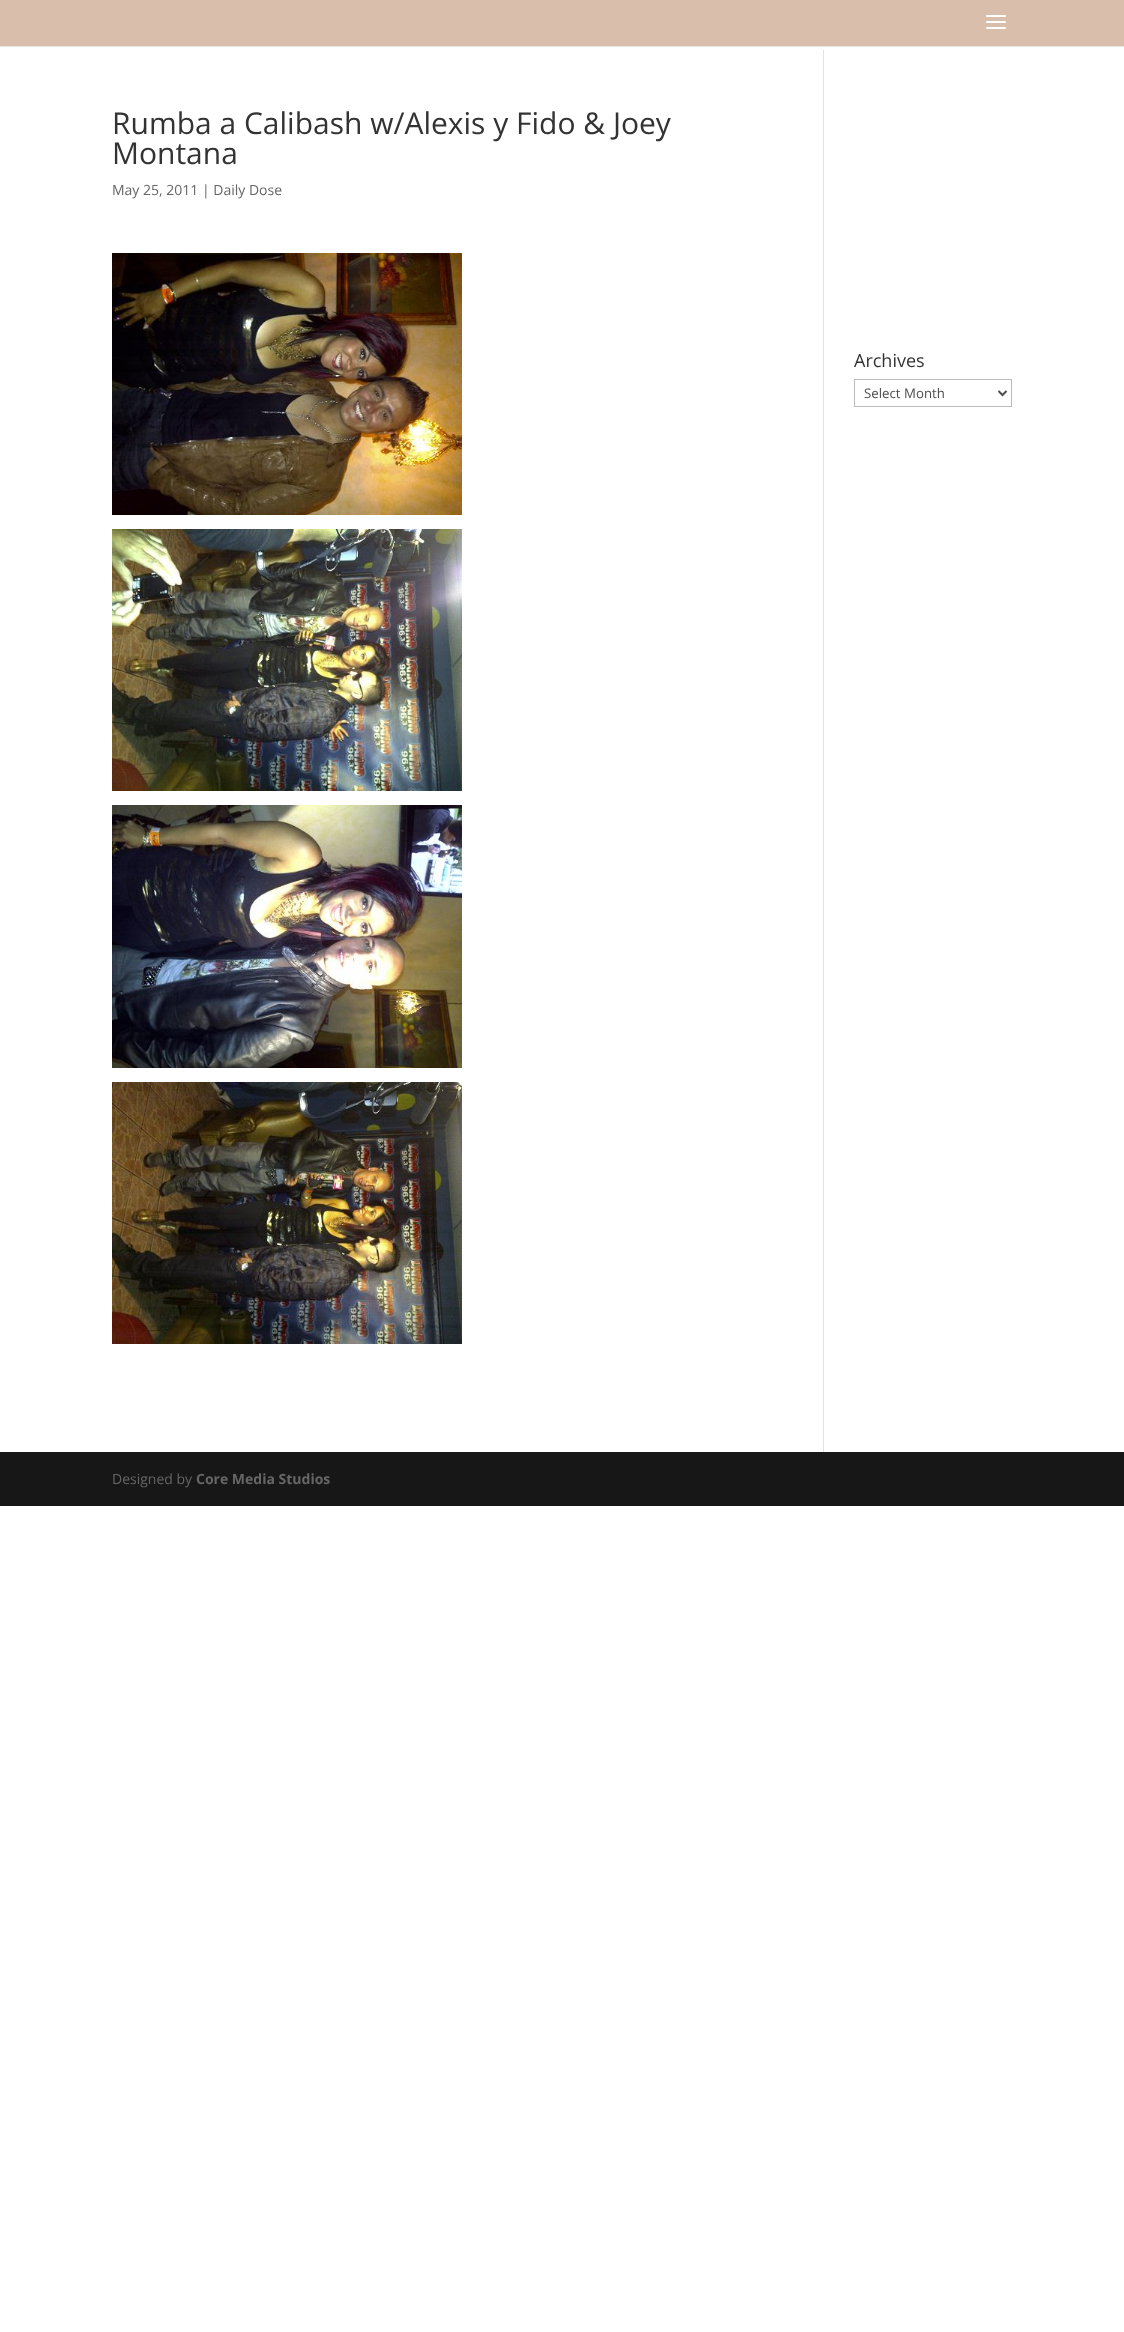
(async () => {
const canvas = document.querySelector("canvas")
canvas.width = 1124
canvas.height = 2332
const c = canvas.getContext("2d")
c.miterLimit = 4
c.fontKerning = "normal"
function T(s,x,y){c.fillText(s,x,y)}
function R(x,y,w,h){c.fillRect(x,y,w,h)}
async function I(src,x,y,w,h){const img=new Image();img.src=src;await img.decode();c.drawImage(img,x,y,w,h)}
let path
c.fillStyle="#fff"
R(0,0,1124,2332)
c.fillStyle="#e6e6e6"
R(0,46,1124,1)
c.fillStyle="#d9beac"
R(0,0,1124,46)
await I("1.png",986,15,20,14)
c.fillStyle="#e2e2e2"
R(823,50,1,1402)
c.font="30px Open Sans"
c.fillStyle="#333"
T("Rumba a Calibash w/Alexis y Fido & Joey",112,134)
T("Montana",112,164)
c.font="14px Open Sans"
c.fillStyle="#666"
T("May 25, 2011 | Daily Dose",112,195)
await I("2.png",112,253,350,262)
await I("3.png",112,529,350,262)
await I("4.png",112,805,350,263)
await I("5.png",112,1082,350,262)
c.font="18px Open Sans"
c.fillStyle="#333"
T("Archives",854,367)
c.strokeStyle="#bbb"
c.strokeRect(854.5,379.5,157,27)
path = new Path2D("M998.5 391l4 4l4-4")
c.strokeStyle="#4e4e4e"
c.lineWidth=2
c.stroke(path)
c.font="13.25px Open Sans"
c.fillStyle="#4e4e4e"
T("Select Month",864,398)
c.fillStyle="#171717"
R(0,1452,1124,54)
c.font="14px Open Sans"
c.fillStyle="#666"
T("Designed by",112,1484)
c.font="bold 14px Open Sans"
T("Core Media Studios",196,1484)
})()
